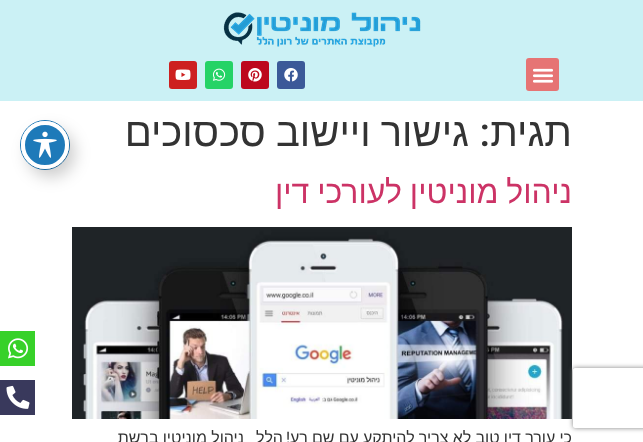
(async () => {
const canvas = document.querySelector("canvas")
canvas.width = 643
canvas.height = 442
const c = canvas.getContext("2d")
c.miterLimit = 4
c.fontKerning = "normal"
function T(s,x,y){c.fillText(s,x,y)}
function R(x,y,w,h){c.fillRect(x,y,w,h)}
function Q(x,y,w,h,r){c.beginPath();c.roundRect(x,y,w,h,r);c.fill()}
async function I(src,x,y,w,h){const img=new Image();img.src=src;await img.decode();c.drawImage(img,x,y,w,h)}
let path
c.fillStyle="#fff"
R(0,0,643,442)
c.fillStyle="#cbf1f5"
R(0,0,643,101)
await I("1.png",223,12,198,35)
c.fillStyle="#e67474"
Q(526,58,33,33,3)
await I("2.png",533,68,20,15)
c.fillStyle="#3b5998"
Q(277,61,28,28,3)
await I("3.png",284,68,14,14)
c.fillStyle="#bd081c"
Q(241,61,28,28,3)
await I("4.png",248,68,14,14)
c.fillStyle="#25d366"
Q(205,61,28,28,3)
await I("5.png",212,68,14,13)
c.fillStyle="#cd201f"
Q(169,61,28,28,3)
await I("6.png",175,69,16,11)
c.direction="rtl"
c.font="40px Liberation Sans"
c.fillStyle="#333"
T("תגית",572,146)
c.font="500 40px Roboto"
T(":",490,146)
c.wordSpacing="-1px"
c.font="40px Liberation Sans"
T("גישור ויישוב סכסוכים",469,146)
c.font="32px Liberation Sans"
c.fillStyle="#c36"
T("ניהול מוניטין לעורכי דין",572,203)
await I("7.png",72,227,500,192)
c.wordSpacing="-0.25px"
c.font="16px Liberation Sans"
c.fillStyle="#333"
T("כי עורך דין טוב לא צריך להיתקע עם שם רע",572,443)
c.wordSpacing="0px"
c.font="16px Roboto"
T("!",290,443)
c.font="16px Liberation Sans"
T("הלל",283,443)
c.wordSpacing="-0.25px"
T("ניהול מוניטין ברשת",244,443)
c.beginPath()
c.arc(45,145,24.5,0,7)
c.strokeStyle="#1e7ab9"
c.stroke()
c.fillStyle="#00000033"
c.filter="blur(8px)"
c.beginPath()
c.roundRect(27,129,48,48,24)
c.fill()
c.filter="none"
c.fillStyle="#1e7ab9"
c.beginPath()
c.arc(45,145,22,0,7)
c.fill()
c.strokeStyle="#fff"
c.lineWidth=4
c.stroke()
await I("8.png",33,131,24,27)
c.save()
path = new Path2D("M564 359h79v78h-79zm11 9h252c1 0 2 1 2 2v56c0 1-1 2-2 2h-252c-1 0-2-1-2-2v-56c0-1 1-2 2-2z")
c.clip(path,"evenodd")
c.fillStyle="#808080"
c.filter="blur(2.5px)"
c.beginPath()
c.roundRect(573,368,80,60,2)
c.fill()
c.filter="none"
c.restore()
c.fillStyle="#37d129"
R(0,331,35,35)
await I("9.png",8,338,21,21)
c.fillStyle="#39395c"
R(0,380,35,35)
await I("10.png",6,385,24,24)
})()
